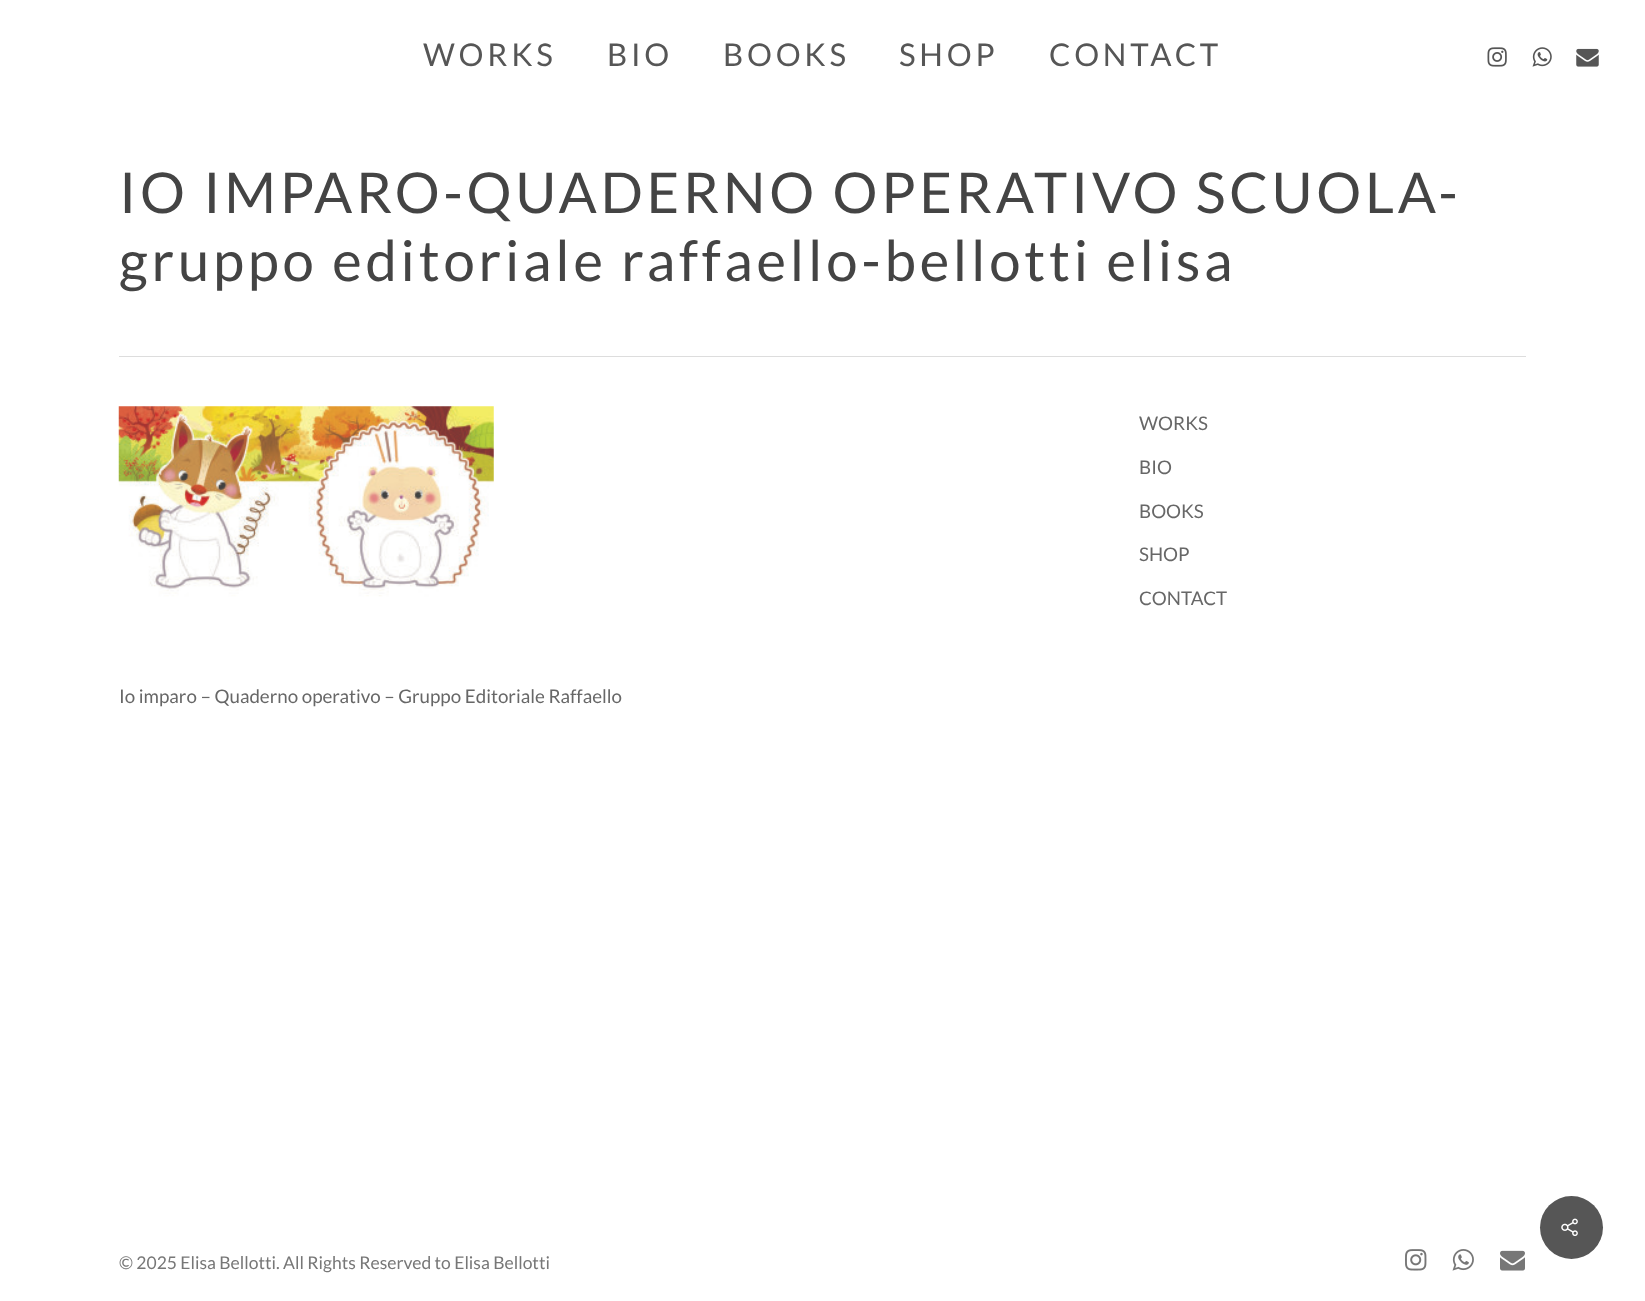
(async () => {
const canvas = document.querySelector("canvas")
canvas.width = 1645
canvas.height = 1301
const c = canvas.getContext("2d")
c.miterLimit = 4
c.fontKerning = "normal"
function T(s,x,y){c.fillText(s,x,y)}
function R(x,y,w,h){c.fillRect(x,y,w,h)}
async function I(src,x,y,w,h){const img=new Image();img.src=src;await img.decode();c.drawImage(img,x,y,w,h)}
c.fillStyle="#fff"
R(0,0,1645,1301)
c.letterSpacing="3.75px"
c.font="31.25px Lato"
c.fillStyle="#565656"
T("WORKS",423,66)
T("BIO",607,66)
T("BOOKS",723,66)
T("SHOP",899,66)
T("CONTACT",1049,66)
await I("1.png",1487,47,20,20)
await I("2.png",1532,47,20,20)
await I("3.png",1576,48,23,19)
c.fillStyle="#ddd"
R(119,356,1407,1)
c.font="56.25px Lato"
c.fillStyle="#444"
T("IO IMPARO-QUADERNO OPERATIVO SCUOLA-",119,213)
T("gruppo editoriale raffaello-bellotti elisa",119,281)
c.letterSpacing="0px"
c.font="18.75px Lato"
c.fillStyle="#676767"
T("WORKS",1139,430)
T("BIO",1139,474)
T("BOOKS",1139,518)
T("SHOP",1139,561)
T("CONTACT",1139,605)
await I("4.png",118,406,376,191)
T("Io imparo – Quaderno operativo – Gruppo Editoriale Raffaello",119,703)
c.fillStyle="#565656"
c.beginPath()
c.arc(1571.5,1227.5,31.5,0,7)
c.fill()
await I("5.png",1561,1218,17,18)
c.font="17.5px Lato"
c.fillStyle="#777"
T("© 2025 Elisa Bellotti. All Rights Reserved to Elisa Bellotti",119,1269)
await I("6.png",1405,1249,22,22)
await I("7.png",1452,1249,22,22)
await I("8.png",1500,1250,25,21)
})()
